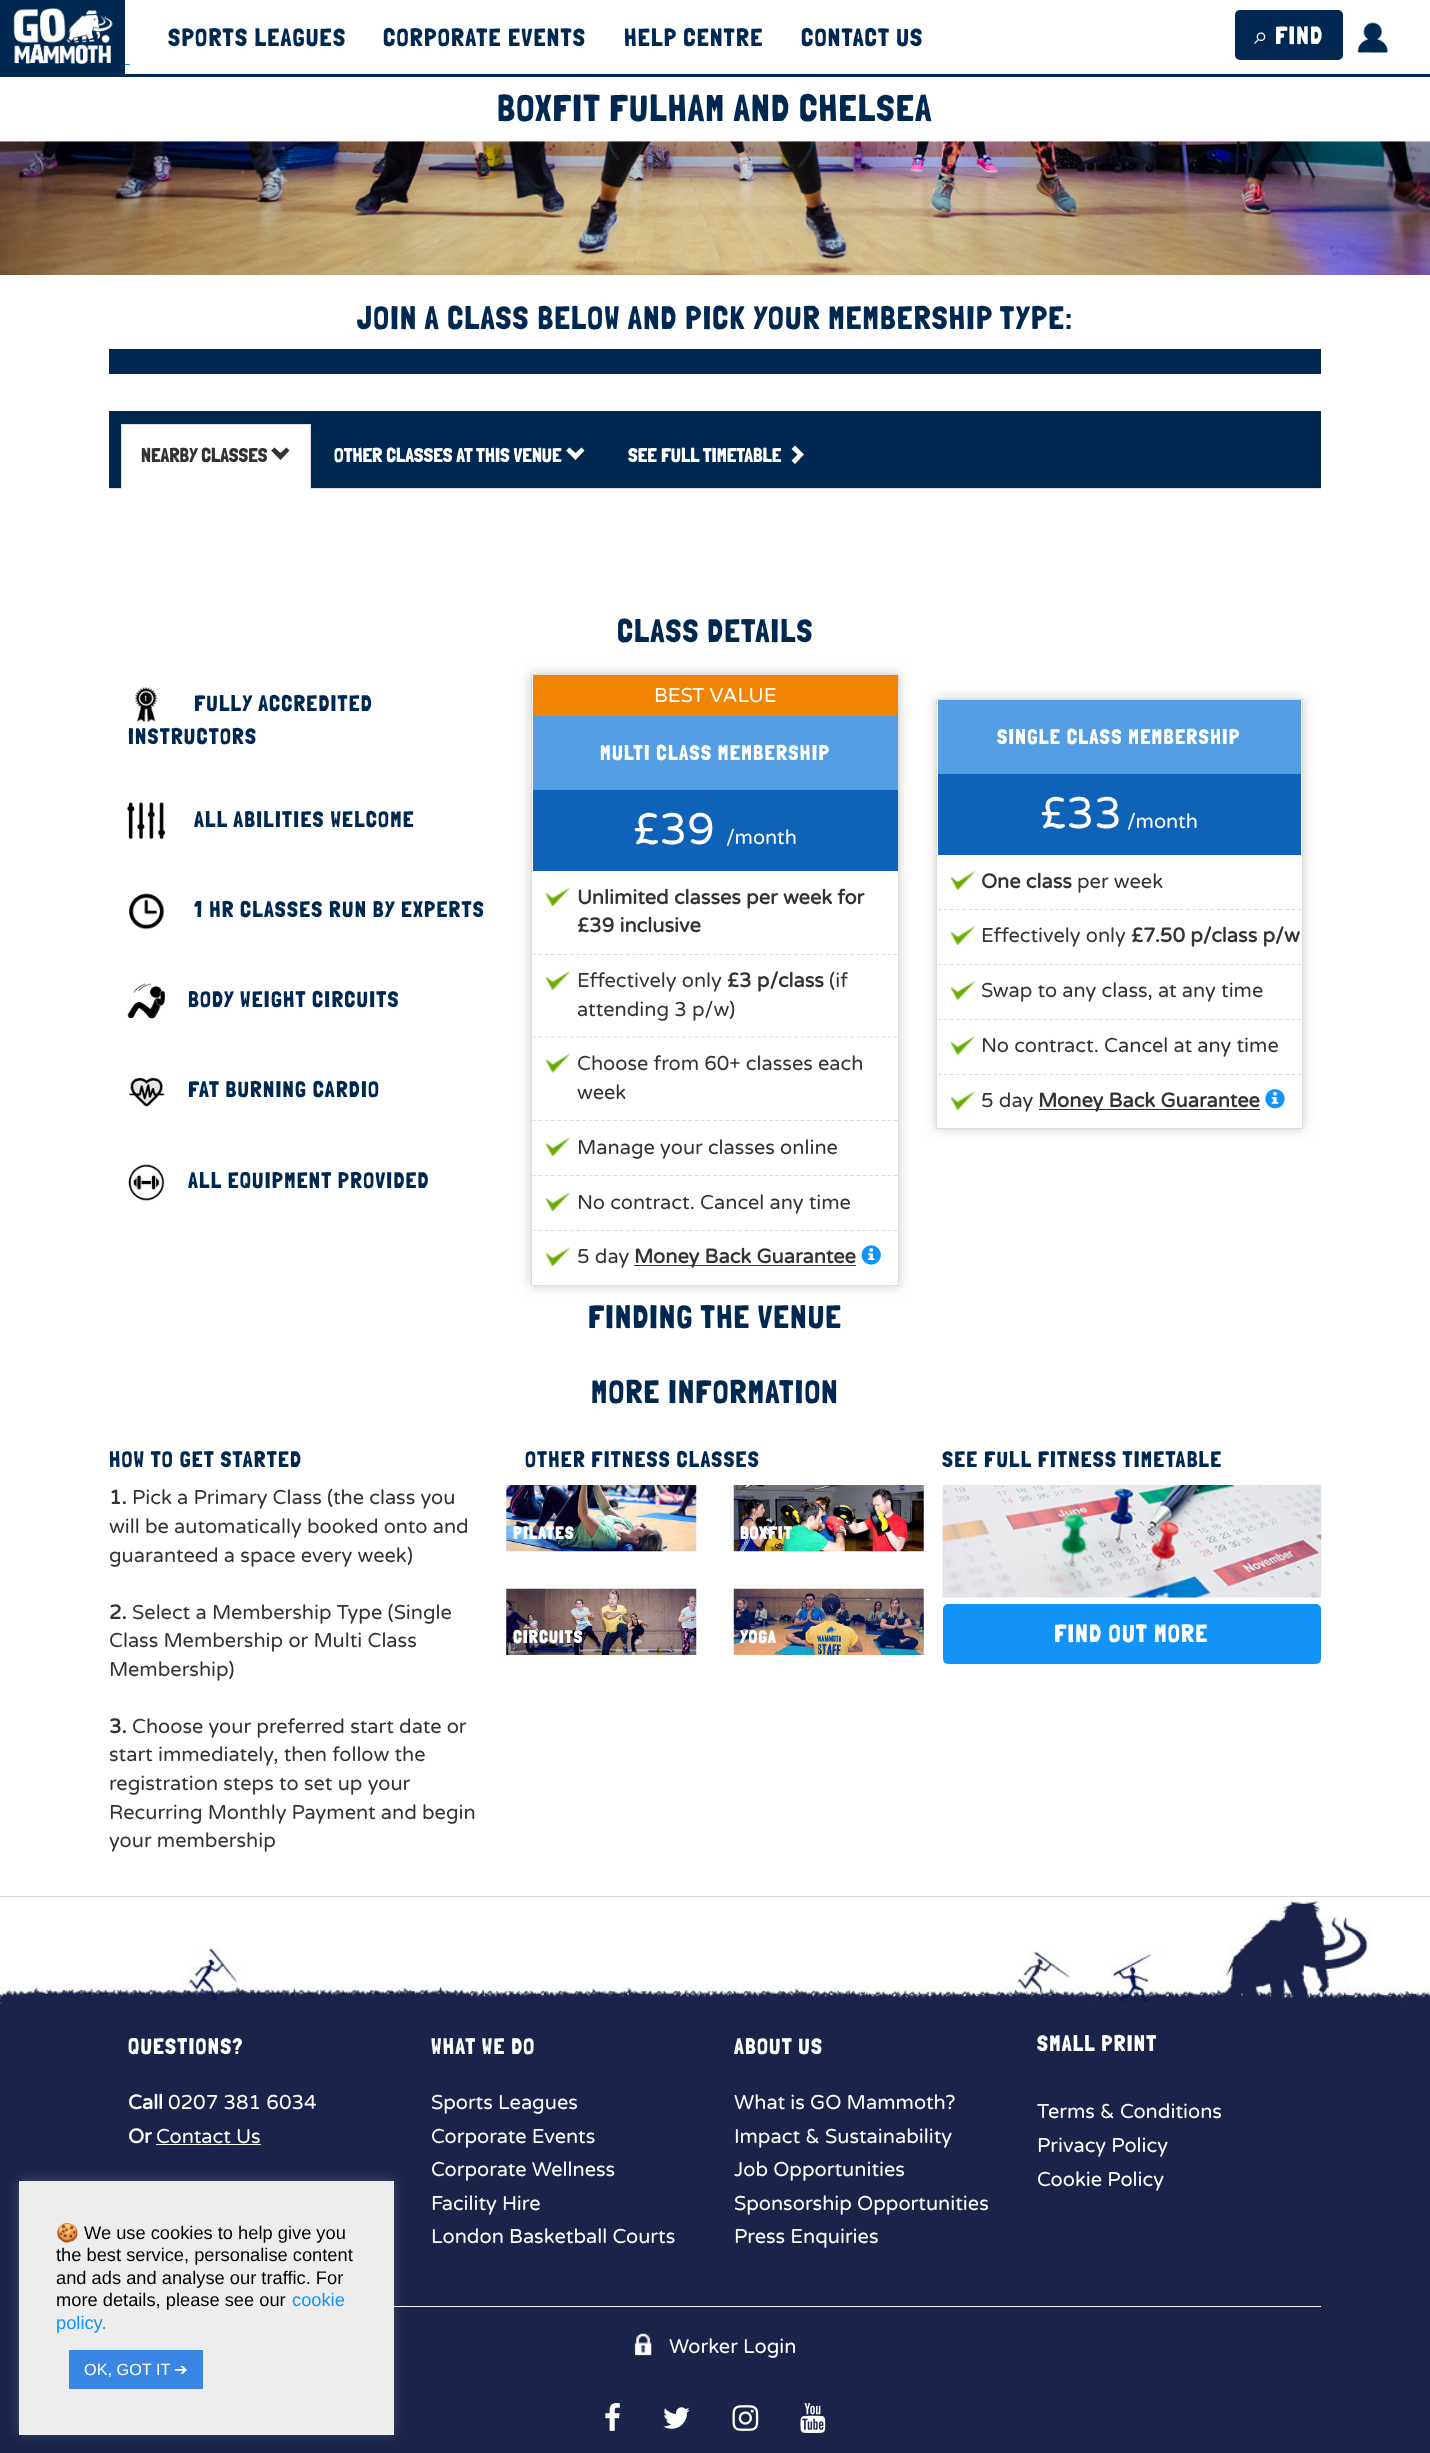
(async () => {
const canvas = document.querySelector("canvas")
canvas.width = 1430
canvas.height = 2453
const c = canvas.getContext("2d")
c.miterLimit = 4
c.fontKerning = "normal"
function T(s,x,y){c.fillText(s,x,y)}
function R(x,y,w,h){c.fillRect(x,y,w,h)}
function Q(x,y,w,h,r){c.beginPath();c.roundRect(x,y,w,h,r);c.fill()}
async function I(src,x,y,w,h){const img=new Image();img.src=src;await img.decode();c.drawImage(img,x,y,w,h)}
let path
c.fillStyle="#fff"
R(0,0,1430,2453)
c.fillStyle="#002850"
R(0,74,1430,3)
R(0,0,125,74)
await I("1.png",13,8,100,56)
c.letterSpacing="1.25px"
c.font="25px Londrina Solid"
T("SPORTS LEAGUES",168,46)
T("CORPORATE EVENTS",383,46)
T("HELP CENTRE",624,46)
T("CONTACT US",801,46)
Q(1235,10,108,50,5)
c.font="25px FreeSerif"
c.fillStyle="#fff"
T("⌕",1254,44)
c.font="25px Londrina Solid"
T("FIND",1275,44)
await I("2.png",1357,22,31,31)
c.fillStyle="#0f84e0"
R(125,64,5,1)
c.font="37.5px Londrina Solid"
c.fillStyle="#002850"
T("BOXFIT FULHAM AND CHELSEA",497,121)
await I("3.png",0,141,1430,134)
c.font="32.5px Londrina Solid"
T("JOIN A CLASS BELOW AND PICK YOUR MEMBERSHIP TYPE:",357,329)
R(109,349,1212,25)
R(109,411,1212,77)
c.fillStyle="#ddd"
R(109,488,1212,1)
c.fillStyle="#fff"
R(121,425,190,64)
c.fillStyle="#ddd"
R(121,424,190,1)
path = new Path2D("M311 424v65l-1-1v-63z")
c.fill(path)
path = new Path2D("M121 489v-65l1 1v63z")
c.fill(path)
c.letterSpacing="0px"
c.font="20px Londrina Solid"
c.fillStyle="#333"
T("NEARBY CLASSES",141,462)
path = new Path2D("M289.5 450.5l-9 9.5l-9.5-9.5l3.5-3l6 5.5l6-5.5z")
c.fill(path)
c.fillStyle="#fff"
T("OTHER CLASSES AT THIS VENUE",334,462)
path = new Path2D("M584.5 450.5l-9 9.5l-9.5-9.5l3.5-3l6 5.5l6-5.5z")
c.fill(path)
T("SEE FULL TIMETABLE",628,462)
path = new Path2D("M804 454.5l-9 9.5l-3.5-3.5l6-6l-6-5.5l3.5-3.5z")
c.fill(path)
c.letterSpacing="1.25px"
c.font="32.5px Londrina Solid"
c.fillStyle="#002850"
T("CLASS DETAILS",617,642)
await I("4.png",134,687,24,36)
c.font="22.5px Londrina Solid"
T("FULLY ACCREDITED",194,711)
T("INSTRUCTORS",128,744)
await I("5.png",127,802,38,37)
T("ALL ABILITIES WELCOME",194,827)
await I("6.png",128,893,37,37)
T("1 HR CLASSES RUN BY EXPERTS",194,917)
await I("7.png",127,983,38,36)
T("BODY WEIGHT CIRCUITS",188,1007)
await I("8.png",129,1077,36,30)
T("FAT BURNING CARDIO",188,1097)
await I("9.png",128,1164,37,37)
T("ALL EQUIPMENT PROVIDED",188,1188)
c.save()
path = new Path2D("M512 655h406v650h-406zm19 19h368v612h-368z")
c.clip(path,"evenodd")
c.fillStyle="#ccc"
c.filter="blur(6px)"
c.beginPath()
c.rect(531,674,368,612)
c.fill()
c.filter="none"
c.restore()
c.strokeStyle="#ddd"
c.strokeRect(531.5,674.5,367,611)
c.fillStyle="#f18403"
R(533,675,365,41)
c.letterSpacing="0px"
c.font="20px Varela Round"
c.fillStyle="#fff"
T("BEST VALUE",654,702)
c.fillStyle="#559ee3"
R(533,716,365,74)
c.letterSpacing="1.25px"
c.font="21.25px Londrina Solid"
c.fillStyle="#fff"
T("MULTI CLASS MEMBERSHIP",600,760)
c.fillStyle="#0e63b9"
R(533,790,365,81)
c.letterSpacing="0px"
c.font="44px Varela Round"
c.fillStyle="#fff"
T("£39",633,844)
c.font="20px Varela Round"
T("/month",726,844)
await I("10.png",546,887,24,20)
c.font="bold 20px Varela Round"
c.fillStyle="#333"
T("Unlimited classes per week for",577,904)
T("£39 inclusive",577,932)
await I("11.png",546,971,24,19)
path = new Path2D("M532.5 954.5h365")
c.lineWidth=1.2
c.setLineDash([3.75,2.48])
c.stroke(path)
c.font="20px Varela Round"
T("Effectively only",577,987)
c.font="bold 20px Varela Round"
T("£3 p/class",727,987)
c.font="20px Varela Round"
T("(if",829,987)
T("attending 3 p/w)",577,1016)
await I("12.png",546,1053,24,20)
path = new Path2D("M532.5 1037h365")
c.stroke(path)
T("Choose from 60+ classes each",577,1070)
T("week",577,1099)
await I("10.png",546,1137,24,20)
path = new Path2D("M532.5 1120.5h365")
c.stroke(path)
T("Manage your classes online",577,1154)
await I("10.png",546,1192,24,20)
path = new Path2D("M532.5 1175.5h365")
c.stroke(path)
T("No contract. Cancel any time",577,1209)
await I("10.png",546,1247,24,20)
path = new Path2D("M532.5 1230.5h365")
c.stroke(path)
T("5 day",577,1263)
R(634,1265,222,1)
c.font="bold 20px Varela Round"
T("Money Back Guarantee",634,1263)
await I("13.png",861,1245,20,20)
c.save()
path = new Path2D("M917 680h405v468h-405zm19 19h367v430h-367z")
c.clip(path,"evenodd")
c.fillStyle="#ccc"
c.filter="blur(6px)"
c.beginPath()
c.rect(936,699,367,430)
c.fill()
c.filter="none"
c.restore()
c.lineWidth=1
c.setLineDash([])
c.strokeRect(936.5,699.5,366,429)
c.fillStyle="#559ee3"
R(938,700,363,74)
c.letterSpacing="1.25px"
c.font="21.25px Londrina Solid"
c.fillStyle="#fff"
T("SINGLE CLASS MEMBERSHIP",997,744)
c.fillStyle="#0e63b9"
R(938,774,363,81)
c.letterSpacing="0px"
c.font="44px Varela Round"
c.fillStyle="#fff"
T("£33",1040,828)
c.font="20px Varela Round"
T("/month",1127,828)
await I("11.png",951,871,24,19)
c.font="bold 20px Varela Round"
c.fillStyle="#333"
T("One class",981,888)
c.font="20px Varela Round"
T("per week",1077,888)
await I("11.png",951,926,24,19)
path = new Path2D("M937.5 909.5h363.5")
c.lineWidth=1.2
c.setLineDash([3.75,2.46])
c.stroke(path)
T("Effectively only",981,942)
c.font="bold 20px Varela Round"
T("£7.50 p/class p/w",1131,942)
await I("11.png",951,981,24,19)
path = new Path2D("M937.5 964.5h363.5")
c.stroke(path)
c.font="20px Varela Round"
T("Swap to any class, at any time",981,997)
await I("11.png",951,1036,24,19)
path = new Path2D("M937.5 1019.5h363.5")
c.stroke(path)
T("No contract. Cancel at any time",981,1052)
await I("11.png",951,1091,24,19)
path = new Path2D("M937.5 1074.5h363.5")
c.stroke(path)
T("5 day",981,1107)
R(1039,1109,221,1)
c.font="bold 20px Varela Round"
T("Money Back Guarantee",1038,1107)
await I("14.png",1265,1089,20,20)
c.letterSpacing="1.25px"
c.font="32.5px Londrina Solid"
c.fillStyle="#002850"
T("FINDING THE VENUE",588,1328)
T("MORE INFORMATION",591,1403)
c.font="22.5px Londrina Solid"
T("HOW TO GET STARTED",109,1467)
c.letterSpacing="0px"
c.font="bold 20px Varela Round"
c.fillStyle="#333"
T("1.",109,1504)
c.font="20px Varela Round"
T("Pick a Primary Class (the class you",132,1504)
T("will be automatically booked onto and",109,1533)
T("guaranteed a space every week)",109,1562)
c.font="bold 20px Varela Round"
T("2.",109,1619)
c.font="20px Varela Round"
T("Select a Membership Type (Single",132,1619)
T("Class Membership or Multi Class",109,1647)
T("Membership)",109,1676)
c.font="bold 20px Varela Round"
T("3.",109,1733)
c.font="20px Varela Round"
T("Choose your preferred start date or",132,1733)
T("start immediately, then follow the",109,1761)
T("registration steps to set up your",109,1790)
T("Recurring Monthly Payment and begin",109,1819)
T("your membership",109,1847)
c.letterSpacing="1.25px"
c.font="22.5px Londrina Solid"
c.fillStyle="#002850"
T("OTHER FITNESS CLASSES",525,1467)
await I("15.png",506,1485,191,67)
c.font="bold 17.5px Londrina Solid"
c.fillStyle="#fff"
T("PILATES",513,1539)
await I("16.png",733,1485,191,67)
T("BOXFIT",740,1539)
await I("17.png",506,1588,191,67)
T("CIRCUITS",513,1643)
await I("18.png",733,1588,191,67)
T("YOGA",740,1643)
c.font="22.5px Londrina Solid"
c.fillStyle="#002850"
T("SEE FULL FITNESS TIMETABLE",942,1467)
await I("19.png",942,1485,380,113)
c.fillStyle="#1193f9"
Q(943,1604,378,60,5)
c.font="25px Londrina Solid"
c.fillStyle="#fff"
T("FIND OUT MORE",1054,1642)
await I("20.png",0,1896,1430,557)
c.font="22.5px Londrina Solid"
T("QUESTIONS?",128,2054)
c.letterSpacing="0px"
c.font="bold 20px Varela Round"
T("Call",128,2109)
c.font="20px Varela Round"
T("0207 381 6034",168,2109)
c.font="bold 20px Varela Round"
T("Or",128,2143)
c.font="20px Varela Round"
T("Contact Us",156,2143)
R(156,2144,105,1)
c.letterSpacing="1.25px"
c.font="22.5px Londrina Solid"
T("WHAT WE DO",431,2054)
c.letterSpacing="0px"
c.font="20px Varela Round"
T("Sports Leagues",431,2109)
T("Corporate Events",431,2143)
T("Corporate Wellness",431,2176)
T("Facility Hire",431,2210)
T("London Basketball Courts",431,2243)
c.letterSpacing="1.25px"
c.font="22.5px Londrina Solid"
T("ABOUT US",734,2054)
c.letterSpacing="0px"
c.font="20px Varela Round"
T("What is GO Mammoth?",734,2109)
T("Impact & Sustainability",734,2143)
T("Job Opportunities",734,2176)
T("Sponsorship Opportunities",734,2210)
T("Press Enquiries",734,2243)
c.letterSpacing="1.25px"
c.font="22.5px Londrina Solid"
T("SMALL PRINT",1037,2051)
c.letterSpacing="0px"
c.font="20px Varela Round"
T("Terms & Conditions",1037,2118)
T("Privacy Policy",1037,2152)
T("Cookie Policy",1037,2186)
R(394,2306,927,1)
await I("21.png",634,2333,18,23)
T("Worker Login",669,2353)
await I("22.png",605,2403,15,28)
await I("23.png",663,2407,27,22)
await I("24.png",732,2405,27,26)
await I("25.png",800,2403,26,30)
c.fillStyle="#acabab4d"
c.filter="blur(6px)"
c.beginPath()
c.rect(19,2180,375,254)
c.fill()
c.filter="none"
c.fillStyle="#ededed"
R(19,2181,375,254)
c.font="18.3px Noto Color Emoji"
c.fillStyle="#000"
T("🍪",56,2239)
c.font="18.3px Liberation Sans"
T("We use cookies to help give you",84,2239)
T("the best service, personalise content",56,2261)
T("and ads and analyse our traffic. For",56,2284)
T("more details, please see our",56,2306)
c.fillStyle="#1193f9"
T("cookie",292,2306)
T("policy.",56,2329)
c.fillStyle="#3986e5"
R(69,2350,134,39)
c.font="16.25px Liberation Sans"
c.fillStyle="#fff"
T("OK, GOT IT",84,2375)
c.font="16.25px DejaVu Sans"
T("➔",174,2375)
})()
